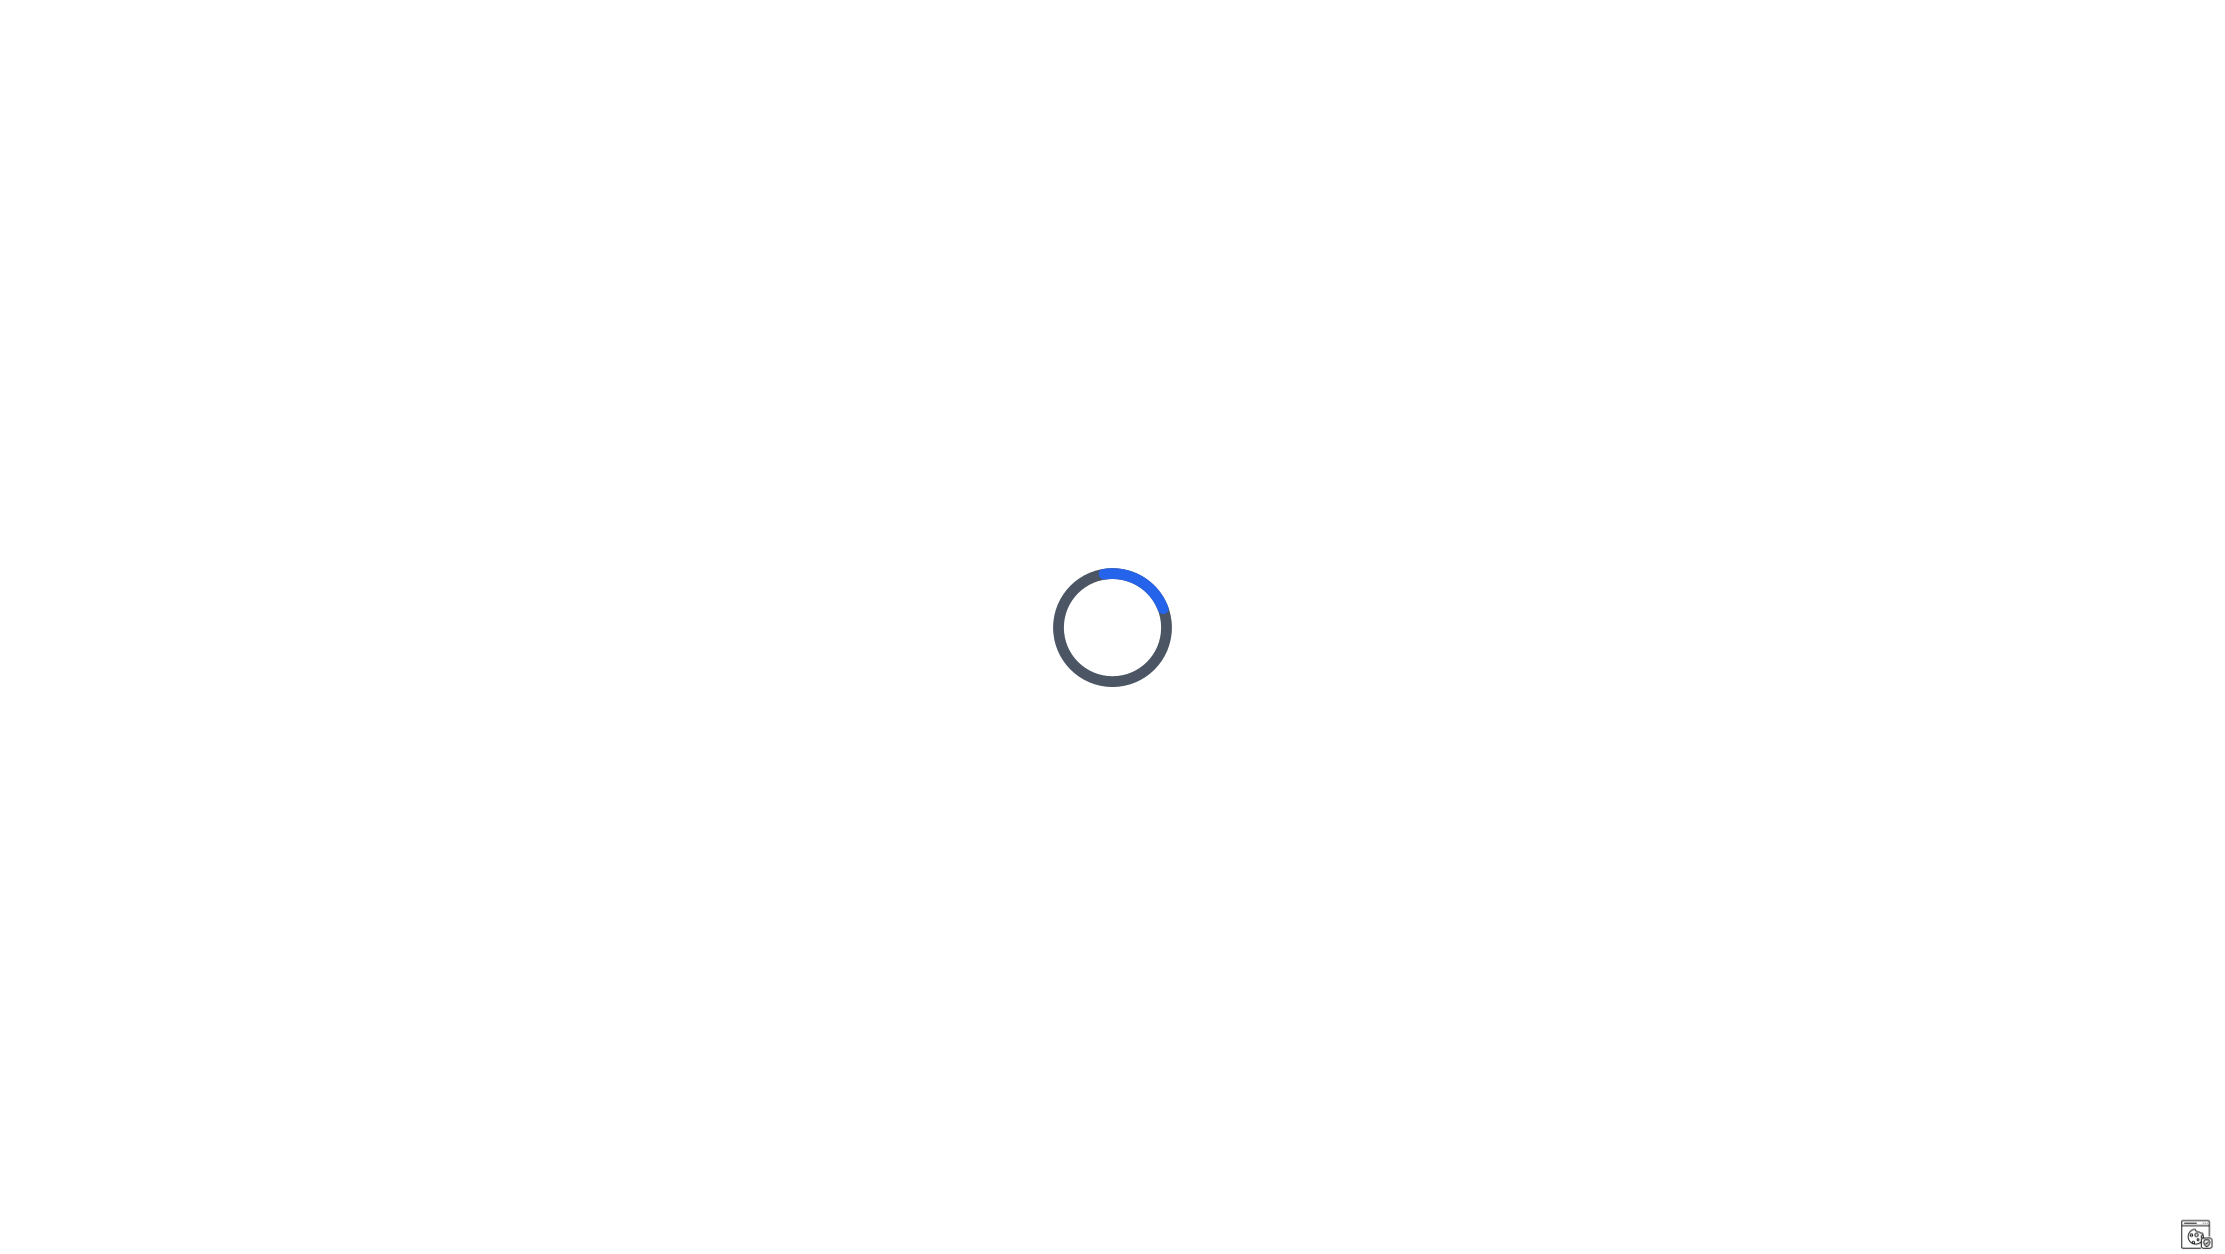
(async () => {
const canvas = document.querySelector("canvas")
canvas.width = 2225
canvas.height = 1254
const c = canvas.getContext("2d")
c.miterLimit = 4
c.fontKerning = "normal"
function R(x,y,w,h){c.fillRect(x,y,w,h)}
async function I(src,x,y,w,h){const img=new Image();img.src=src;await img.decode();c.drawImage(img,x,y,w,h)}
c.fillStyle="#fff"
R(0,0,2225,1254)
await I("1.png",1053,568,119,119)
await I("2.png",2181,1219,32,31)
})()
